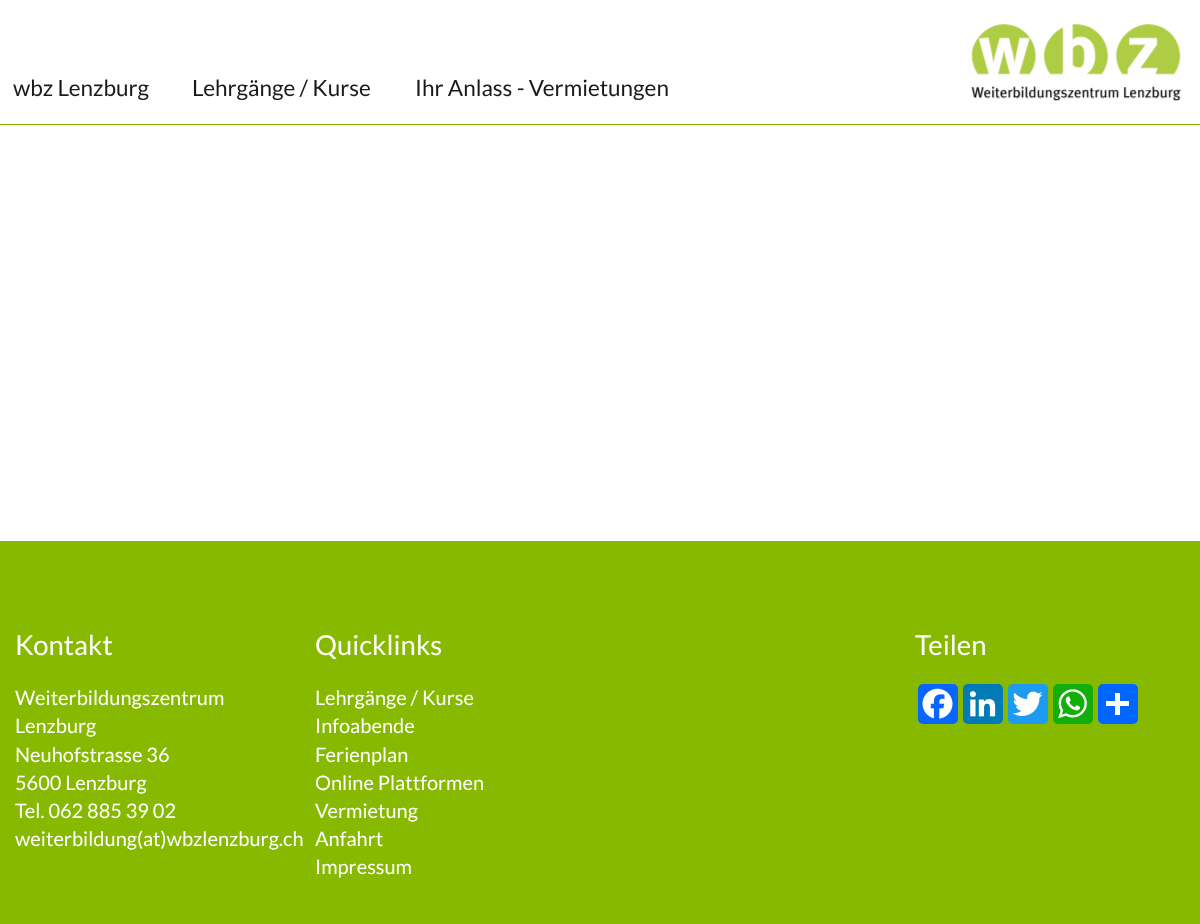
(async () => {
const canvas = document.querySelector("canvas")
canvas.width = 1200
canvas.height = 924
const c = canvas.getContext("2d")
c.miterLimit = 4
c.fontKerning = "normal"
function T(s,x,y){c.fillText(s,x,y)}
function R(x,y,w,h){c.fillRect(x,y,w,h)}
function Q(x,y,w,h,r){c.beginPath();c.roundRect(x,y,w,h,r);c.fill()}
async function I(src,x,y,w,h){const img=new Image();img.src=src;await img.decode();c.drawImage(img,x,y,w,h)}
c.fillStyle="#fff"
R(0,0,1200,924)
c.fillStyle="#87b900"
R(0,124,1200,1)
c.font="22.5px Lato"
c.fillStyle="#1a1a1a"
T("wbz Lenzburg",13,96)
T("Lehrgänge / Kurse",192,96)
T("Ihr Anlass - Vermietungen",415,96)
await I("1.png",971,24,211,77)
c.fillStyle="#87b900"
R(0,541,1200,383)
c.font="27.5px Lato"
c.fillStyle="#fff"
T("Kontakt",15,655)
c.font="20px Lato"
T("Weiterbildungszentrum",15,705)
T("Lenzburg",15,733)
T("Neuhofstrasse 36",15,762)
T("5600 Lenzburg",15,790)
T("Tel. 062 885 39 02",15,818)
T("weiterbildung(at)wbzlenzburg.ch",15,846)
c.font="27.5px Lato"
T("Quicklinks",315,655)
c.font="20px Lato"
T("Lehrgänge / Kurse",315,705)
T("Infoabende",315,733)
T("Ferienplan",315,762)
T("Online Plattformen",315,790)
T("Vermietung",315,818)
T("Anfahrt",315,846)
T("Impressum",315,874)
c.font="27.5px Lato"
T("Teilen",915,655)
c.fillStyle="#0866ff"
Q(918,684,40,40,5)
await I("2.png",922,688,31,31)
c.fillStyle="#007bb5"
Q(963,684,40,40,5)
await I("3.png",969,691,27,26)
c.fillStyle="#1d9bf0"
Q(1008,684,40,40,5)
await I("4.png",1012,691,31,25)
c.fillStyle="#12af0a"
Q(1053,684,40,40,5)
await I("5.png",1058,689,29,30)
c.fillStyle="#0166ff"
Q(1098,684,40,40,5)
c.fillStyle="#fff"
R(1115,693,5,22)
R(1106,701,23,5)
})()
